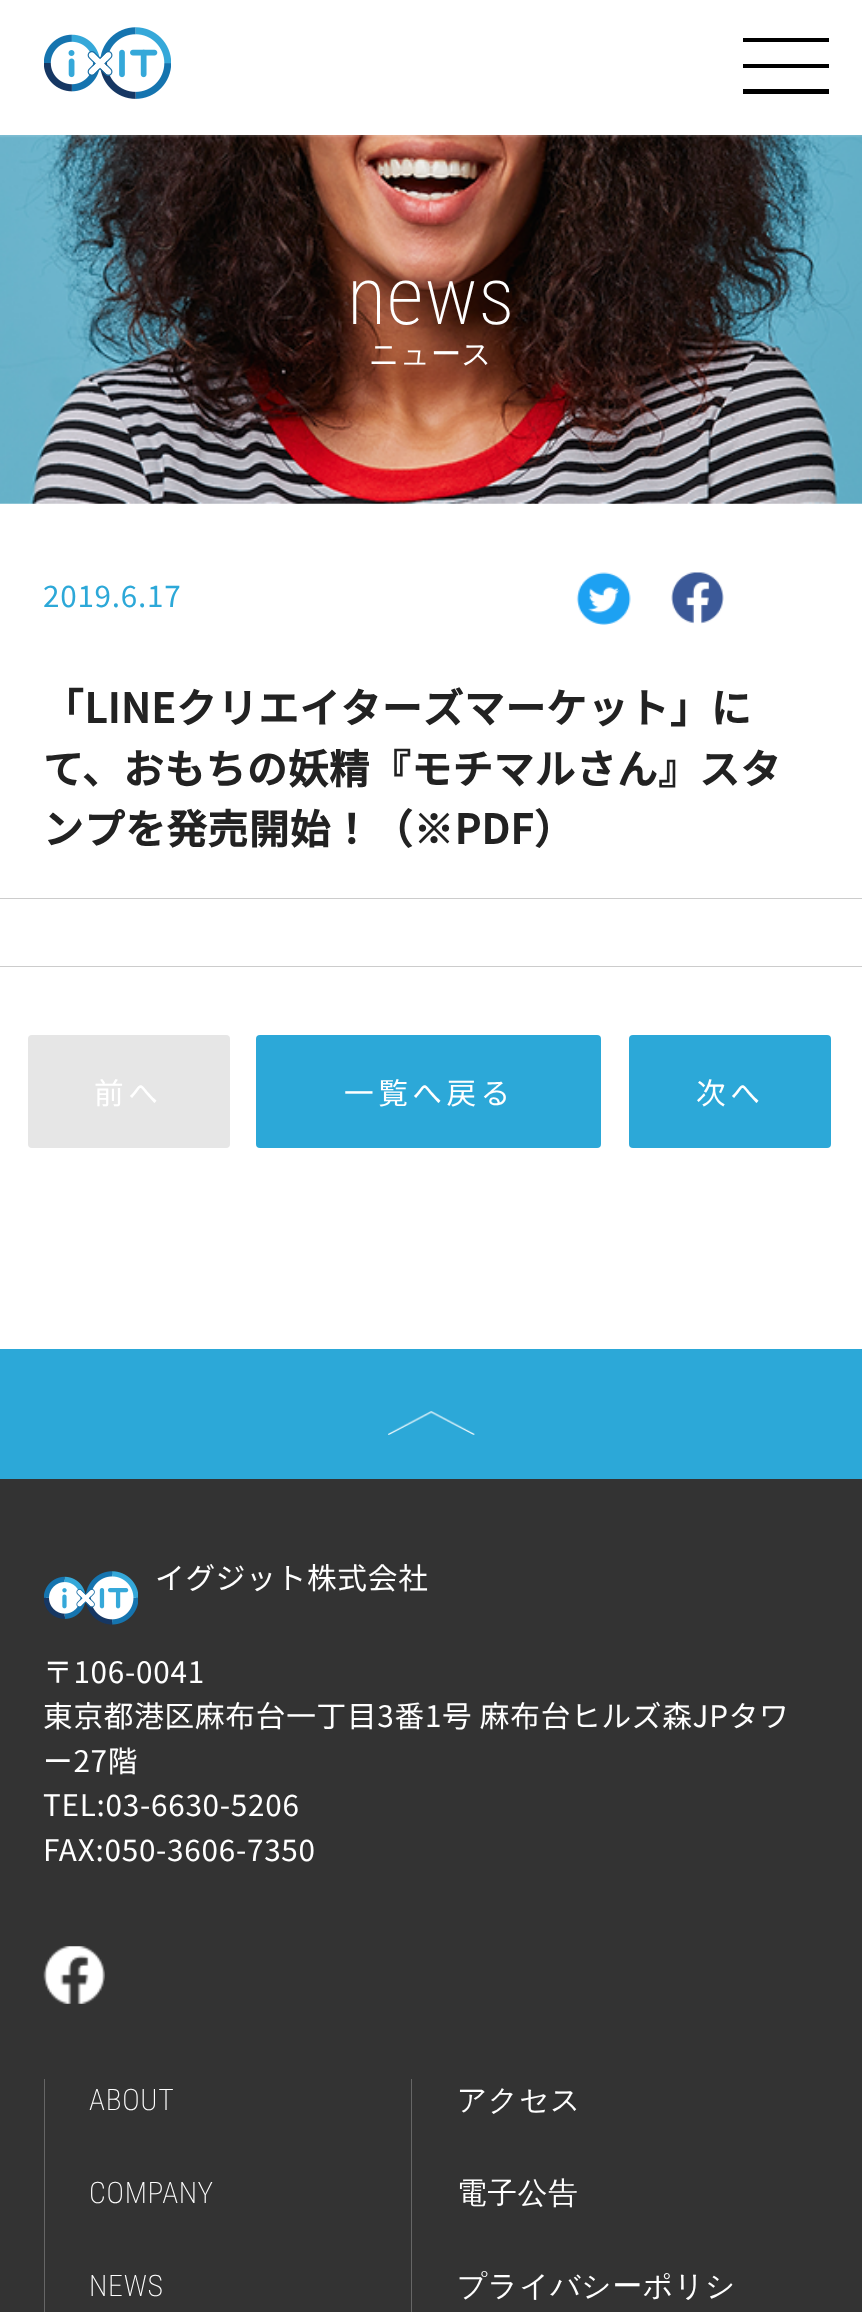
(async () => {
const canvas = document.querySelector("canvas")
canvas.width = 862
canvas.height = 2312
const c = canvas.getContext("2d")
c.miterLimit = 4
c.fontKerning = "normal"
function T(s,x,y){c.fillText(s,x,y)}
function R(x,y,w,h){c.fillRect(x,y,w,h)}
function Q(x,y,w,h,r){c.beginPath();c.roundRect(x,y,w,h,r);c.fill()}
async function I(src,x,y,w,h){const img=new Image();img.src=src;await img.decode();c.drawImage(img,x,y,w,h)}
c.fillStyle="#fff"
R(0,0,862,2312)
await I("1.png",44,27,127,72)
c.fillStyle="#000"
R(743,38,86,4)
R(743,64,86,4)
R(743,89,86,5)
await I("2.png",0,135,862,369)
c.letterSpacing="0.75px"
c.font="200 81px Roboto Condensed"
c.fillStyle="#fff"
T("news",347,324)
c.font="500 29.65px WenQuanYi Zen Hei"
T("ニュース",369,364)
c.fillStyle="#ccc"
R(0,898,862,1)
c.font="29.65px Noto Sans CJK JP"
c.fillStyle="#2ca8d8"
T("2019.6.17",43,607)
await I("3.png",576,572,55,53)
await I("4.png",671,572,53,52)
c.font="bold 40.4px Noto Sans CJK JP"
c.fillStyle="#222"
T("「LINEクリエイターズマーケット」に",43,723)
T("て、おもちの妖精『モチマルさん』スタ",43,784)
T("ンプを発売開始！（※PDF）",43,844)
c.fillStyle="#ccc"
R(0,966,862,1)
c.fillStyle="#e6e6e6"
Q(28,1035,202,113,4)
c.letterSpacing="4.5px"
c.font="29.65px Noto Sans CJK JP"
c.fillStyle="#fff"
T("前へ",94,1104)
c.fillStyle="#2ca8d8"
Q(256,1035,345,113,4)
c.fillStyle="#fff"
T("一覧へ戻る",344,1104)
c.fillStyle="#2ca8d8"
Q(629,1035,202,113,4)
c.fillStyle="#fff"
T("次へ",696,1104)
c.fillStyle="#333"
R(0,1479,862,833)
c.fillStyle="#2ca8d8"
R(0,1349,862,130)
await I("5.png",388,1411,87,24)
await I("6.png",44,1571,94,54)
c.letterSpacing="0.75px"
c.fillStyle="#fff"
T("イグジット株式会社",155,1589)
T("〒106-0041",43,1683)
T("東京都港区麻布台一丁目3番1号 麻布台ヒルズ森JPタワ",43,1727)
T("ー27階",43,1772)
T("TEL:03-6630-5206",43,1816)
T("FAX:050-3606-7350",43,1861)
await I("7.png",43,1946,62,58)
c.fillStyle="#666"
R(44,2079,1,233)
c.font="200 29.65px Roboto Condensed"
c.fillStyle="#fff"
T("ABOUT",89,2110)
T("COMPANY",89,2203)
T("NEWS",89,2296)
c.fillStyle="#666"
R(411,2079,1,233)
c.font="500 29.65px WenQuanYi Zen Hei"
c.fillStyle="#fff"
T("アクセス",457,2110)
T("電子公告",457,2203)
T("プライバシーポリシ",457,2296)
})()
